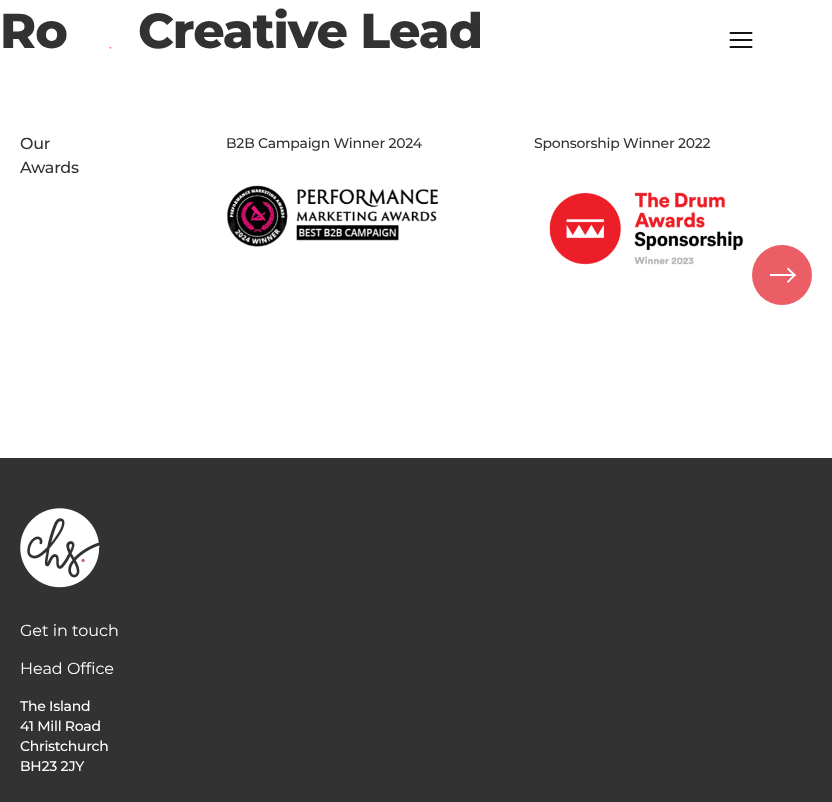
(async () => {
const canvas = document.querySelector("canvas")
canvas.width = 832
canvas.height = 802
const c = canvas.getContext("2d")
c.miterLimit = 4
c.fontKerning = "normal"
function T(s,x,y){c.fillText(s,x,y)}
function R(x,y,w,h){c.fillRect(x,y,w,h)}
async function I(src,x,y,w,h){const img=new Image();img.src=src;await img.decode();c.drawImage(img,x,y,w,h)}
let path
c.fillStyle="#fff"
R(0,0,832,802)
c.letterSpacing="-1px"
c.font="800 49px Montserrat"
c.fillStyle="#323232"
T("Ro",0,48)
T("Creative Lead",138,48)
c.letterSpacing="-0.25px"
c.font="500 16px Montserrat"
T("Our",20,149)
T("Awards",20,173)
c.font="500 14px Montserrat"
T("B2B Campaign Winner 2024",226,148)
await I("1.png",227,185,212,62)
T("Sponsorship Winner 2022",534,148)
await I("2.png",549,192,195,73)
c.fillStyle="#eb5e65"
c.beginPath()
c.arc(782,275,30,0,7)
c.fill()
c.fillStyle="#fff"
R(770,274,24,2)
path = new Path2D("M788 267.5l8 7.5l-1.5 1.5l-7.5-7.5z")
c.fill(path)
path = new Path2D("M794.5 274l1.5 1l-8 8l-1-1.5z")
c.fill(path)
await I("3.png",71,21,50,28)
path = new Path2D("M730.5 40h21m-21-7h21m-21 14h21")
c.strokeStyle="#141414"
c.lineWidth=2
c.lineCap="round"
c.lineJoin="round"
c.stroke(path)
c.fillStyle="#323232"
R(0,458,832,344)
await I("4.png",20,508,80,80)
c.letterSpacing="0px"
c.font="16px Montserrat"
c.fillStyle="#fff"
T("Get in touch",20,636)
T("Head Office",20,674)
c.letterSpacing="-0.25px"
c.font="500 14px Montserrat"
T("The Island",20,711)
T("41 Mill Road",20,731)
T("Christchurch",20,751)
T("BH23 2JY",20,771)
})()
